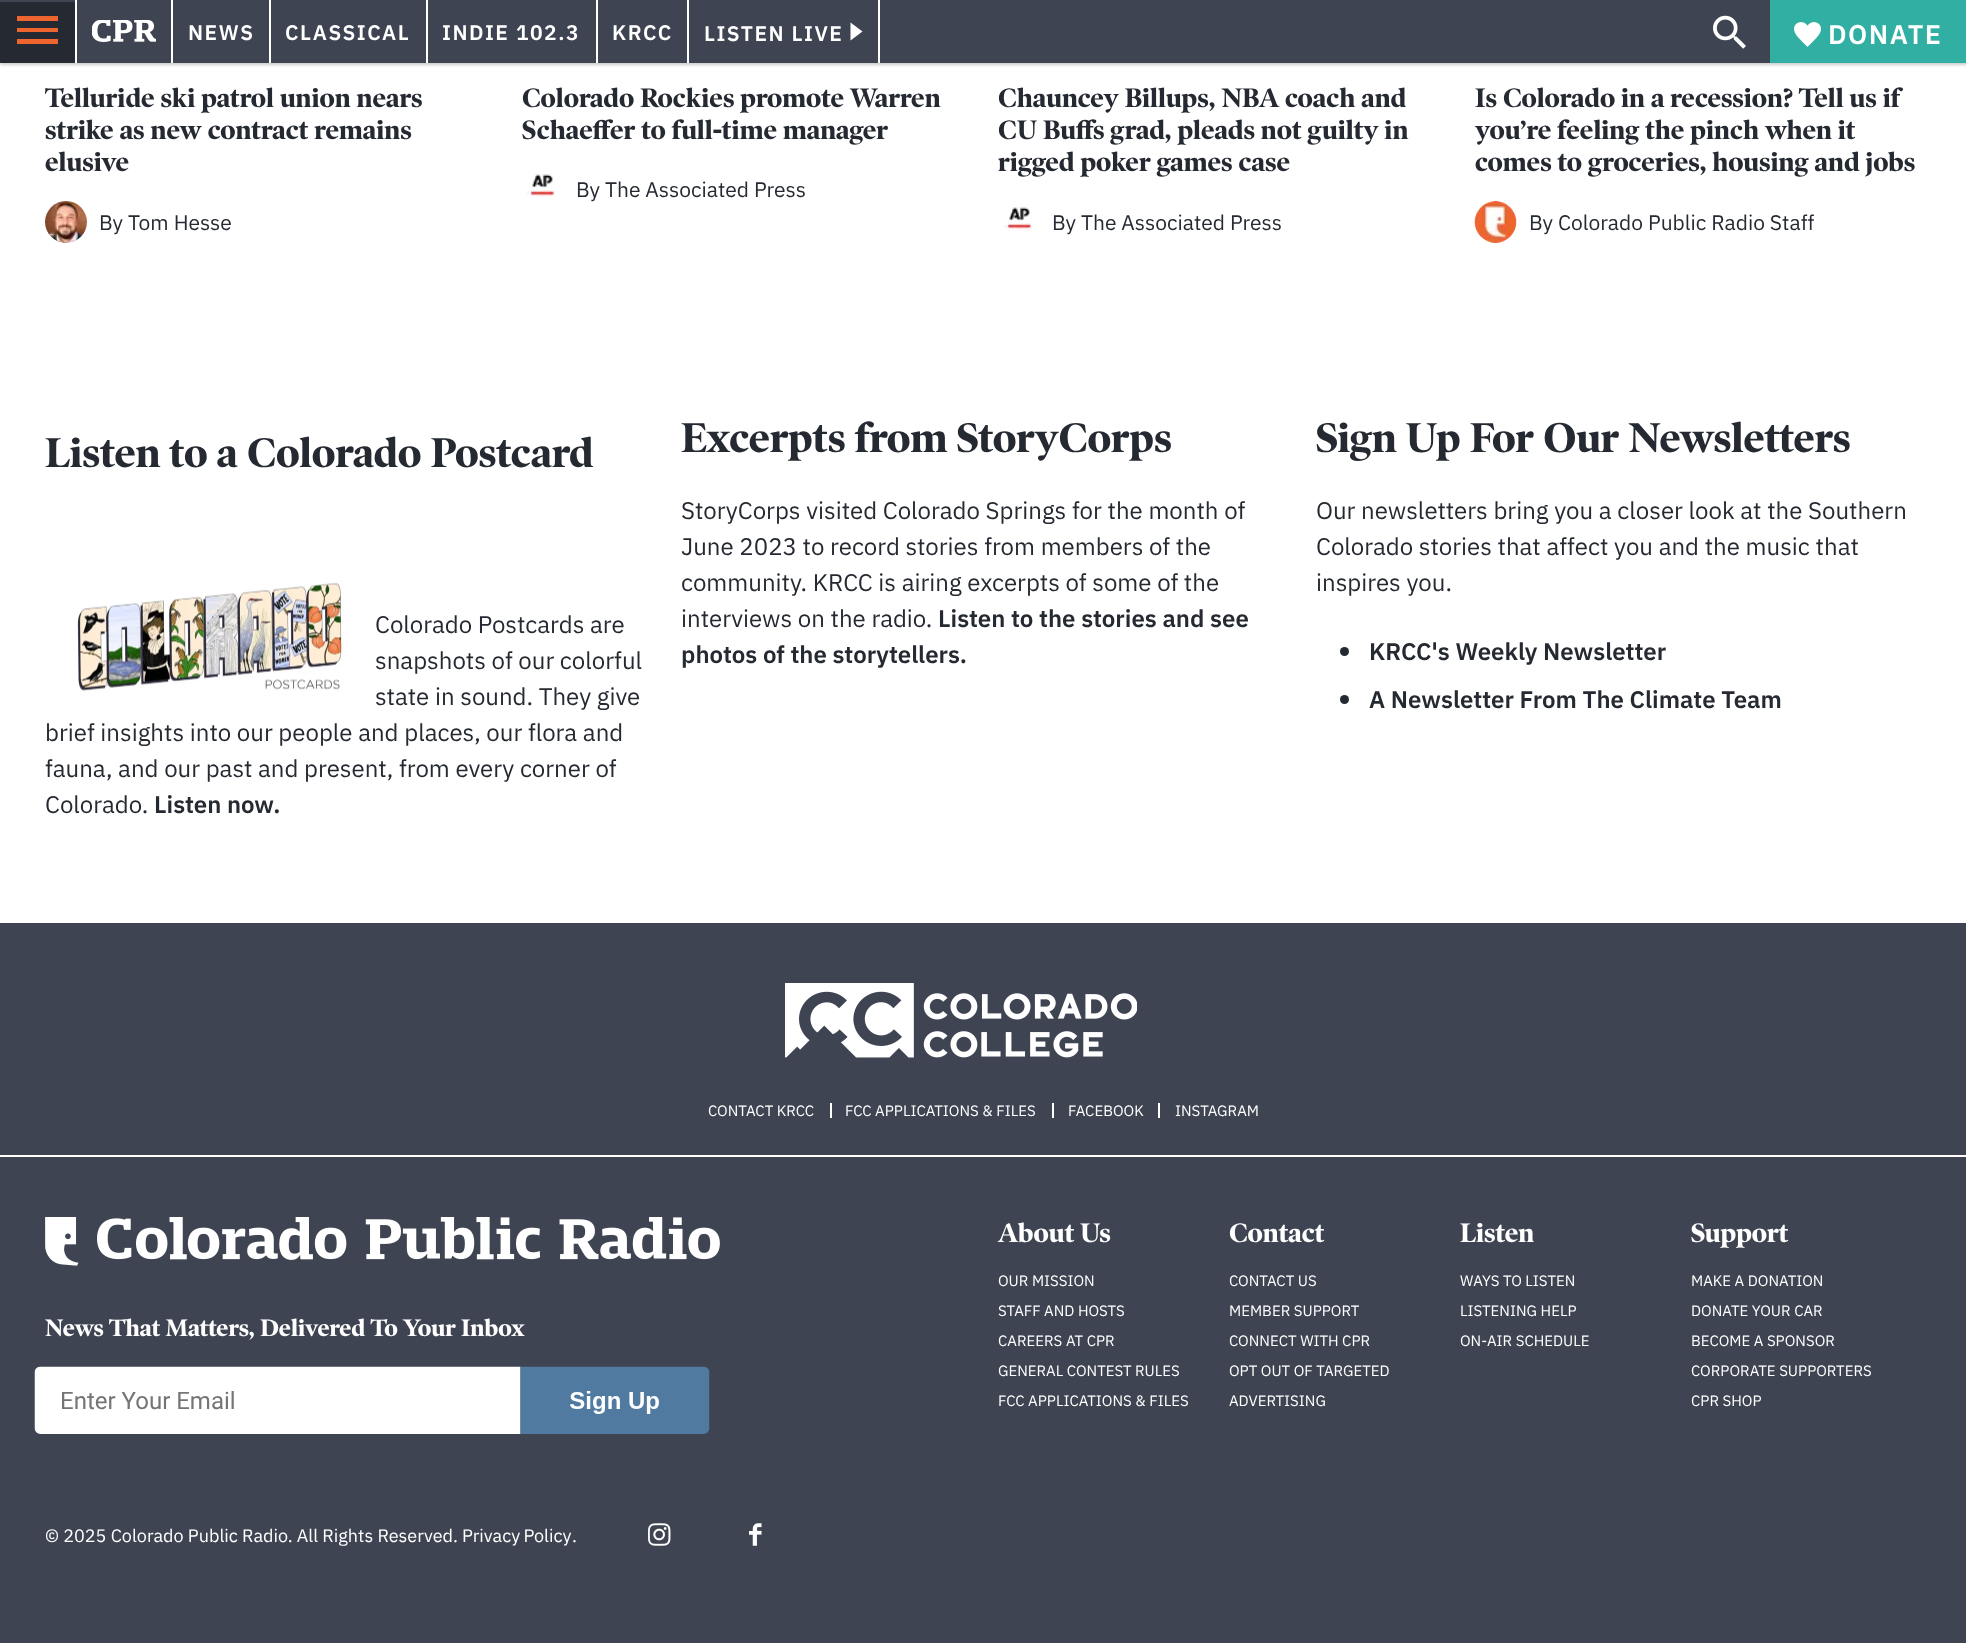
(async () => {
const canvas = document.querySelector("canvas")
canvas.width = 1966
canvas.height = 1643
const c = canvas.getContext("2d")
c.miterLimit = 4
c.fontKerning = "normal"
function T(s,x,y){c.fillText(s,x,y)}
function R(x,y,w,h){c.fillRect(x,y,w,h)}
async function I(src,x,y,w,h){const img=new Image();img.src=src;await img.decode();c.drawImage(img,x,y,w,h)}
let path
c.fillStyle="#fff"
R(0,0,1966,1643)
c.fillStyle="#00000033"
c.filter="blur(1.5px)"
c.beginPath()
c.rect(0,2,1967,63)
c.fill()
c.filter="none"
c.fillStyle="#3e4451"
R(0,0,1770,63)
c.fillStyle="#252931"
R(0,2,75,61)
c.fillStyle="#ef6530"
path = new Path2D("M17 44h41v-5h-41zm0-12h41v-4h-41zm0-16v5h41v-5z")
c.fill(path)
c.fillStyle="#fff"
R(171,0,2,63)
R(75,0,2,63)
await I("1.png",92,20,64,22)
R(269,0,2,63)
c.letterSpacing="1.5px"
c.font="600 21px IBM Plex Sans"
T("NEWS",188,40)
R(426,0,2,63)
T("CLASSICAL",285,40)
R(596,0,2,63)
T("INDIE 102.3",442,40)
R(687,0,2,63)
T("KRCC",612,40)
R(878,0,2,63)
T("LISTEN LIVE",704,41)
path = new Path2D("M850.5 40.5v-18l12 9z")
c.fill(path)
await I("2.png",1713,15,33,34)
c.fillStyle="#32afa3"
R(1770,0,196,63)
await I("3.png",1794,22,27,25)
c.font="600 27px IBM Plex Sans"
c.fillStyle="#fff"
T("DONATE",1828,44)
c.letterSpacing="0px"
c.font="bold 27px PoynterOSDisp"
c.fillStyle="#252931"
T("Telluride ski patrol union nears",45,107)
T("strike as new contract remains",45,139)
T("elusive",45,171)
await I("4.png",45,201,42,42)
c.font="21px IBM Plex Sans"
T("By Tom Hesse",99,230)
c.font="bold 27px PoynterOSDisp"
T("Colorado Rockies promote Warren",522,107)
T("Schaeffer to full-time manager",522,139)
await I("5.png",525,173,30,25)
c.font="21px IBM Plex Sans"
T("By The Associated Press",576,197)
c.font="bold 27px PoynterOSDisp"
T("Chauncey Billups, NBA coach and",998,107)
T("CU Buffs grad, pleads not guilty in",998,139)
T("rigged poker games case",998,171)
await I("6.png",1002,206,30,25)
c.font="21px IBM Plex Sans"
T("By The Associated Press",1052,230)
c.font="bold 27px PoynterOSDisp"
T("Is Colorado in a recession? Tell us if",1475,107)
T("you’re feeling the pinch when it",1475,139)
T("comes to groceries, housing and jobs",1475,171)
await I("7.png",1474,201,43,42)
c.font="21px IBM Plex Sans"
T("By Colorado Public Radio Staff",1529,230)
c.font="bold 42px PoynterOSDisp"
T("Listen to a Colorado Postcard",45,467)
await I("8.png",77,581,267,110)
c.font="24px IBM Plex Sans"
T("Colorado Postcards are",375,633)
T("snapshots of our colorful",375,669)
T("state in sound. They give",375,705)
T("brief insights into our people and places, our flora and",45,741)
T("fauna, and our past and present, from every corner of",45,777)
T("Colorado.",45,813)
c.font="600 24px IBM Plex Sans"
T("Listen now.",154,813)
c.font="bold 42px PoynterOSDisp"
T("Excerpts from StoryCorps",681,452)
c.font="24px IBM Plex Sans"
T("StoryCorps visited Colorado Springs for the month of",681,519)
T("June 2023 to record stories from members of the",681,555)
T("community. KRCC is airing excerpts of some of the",681,591)
T("interviews on the radio.",681,627)
c.font="600 24px IBM Plex Sans"
T("Listen to the stories and see",938,627)
T("photos of the storytellers.",681,663)
c.font="bold 42px PoynterOSDisp"
T("Sign Up For Our Newsletters",1316,452)
c.font="24px IBM Plex Sans"
T("Our newsletters bring you a closer look at the Southern",1316,519)
T("Colorado stories that affect you and the music that",1316,555)
T("inspires you.",1316,591)
c.beginPath()
c.arc(1344.5,651.5,4.5,0,7)
c.fill()
c.font="600 24px IBM Plex Sans"
T("KRCC's Weekly Newsletter",1369,660)
c.beginPath()
c.arc(1344.5,699.5,4.5,0,7)
c.fill()
T("A Newsletter From The Climate Team",1369,708)
c.fillStyle="#3e4451"
R(0,923,1966,720)
c.fillStyle="#fff"
R(0,1155,1966,2)
await I("9.png",785,983,352,75)
R(830,1103,2,15)
c.font="15px IBM Plex Sans"
T("CONTACT KRCC",708,1116)
R(1052,1103,2,15)
T("FCC APPLICATIONS & FILES",845,1116)
R(1158,1103,2,15)
T("FACEBOOK",1068,1116)
T("INSTAGRAM",1175,1116)
await I("10.png",45,1217,675,49)
c.font="bold 24px PoynterOSDisp"
T("News That Matters, Delivered To Your Inbox",45,1336)
await I("11.png",34,1366,676,68)
c.font="bold 27px PoynterOSDisp"
T("About Us",998,1242)
c.font="15px IBM Plex Sans"
T("OUR MISSION",998,1286)
T("STAFF AND HOSTS",998,1316)
T("CAREERS AT CPR",998,1346)
T("GENERAL CONTEST RULES",998,1376)
T("FCC APPLICATIONS & FILES",998,1406)
c.font="bold 27px PoynterOSDisp"
T("Contact",1229,1242)
c.font="15px IBM Plex Sans"
T("CONTACT US",1229,1286)
T("MEMBER SUPPORT",1229,1316)
T("CONNECT WITH CPR",1229,1346)
T("OPT OUT OF TARGETED",1229,1376)
T("ADVERTISING",1229,1406)
c.font="bold 27px PoynterOSDisp"
T("Listen",1460,1242)
c.font="15px IBM Plex Sans"
T("WAYS TO LISTEN",1460,1286)
T("LISTENING HELP",1460,1316)
T("ON-AIR SCHEDULE",1460,1346)
c.font="bold 27px PoynterOSDisp"
T("Support",1691,1242)
c.font="15px IBM Plex Sans"
T("MAKE A DONATION",1691,1286)
T("DONATE YOUR CAR",1691,1316)
T("BECOME A SPONSOR",1691,1346)
T("CORPORATE SUPPORTERS",1691,1376)
T("CPR SHOP",1691,1406)
c.font="18px IBM Plex Sans"
T("© 2025 Colorado Public Radio. All Rights Reserved.",45,1542)
c.wordSpacing="-1px"
T("Privacy Policy",462,1542)
c.wordSpacing="0px"
T(".",572,1542)
await I("12.png",648,1523,23,23)
await I("13.png",749,1523,13,23)
})()
